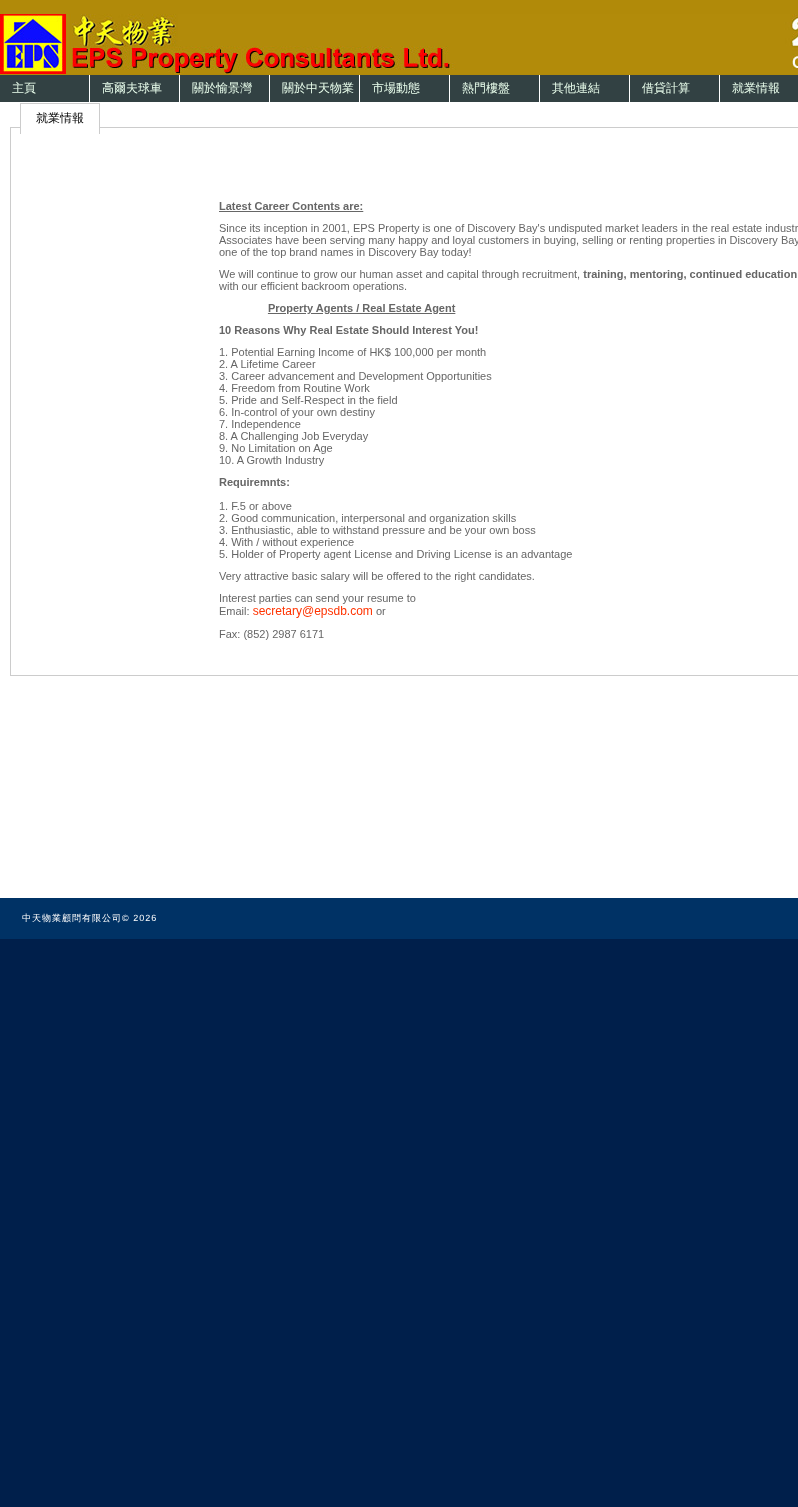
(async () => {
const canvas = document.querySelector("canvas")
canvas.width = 798
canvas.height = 1507
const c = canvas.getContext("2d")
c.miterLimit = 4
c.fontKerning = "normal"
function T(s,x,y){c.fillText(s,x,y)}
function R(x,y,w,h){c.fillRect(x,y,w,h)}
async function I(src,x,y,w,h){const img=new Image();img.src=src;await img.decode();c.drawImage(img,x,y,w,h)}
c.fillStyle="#001f4b"
R(0,0,798,1507)
c.fillStyle="#fff"
R(0,885,798,13)
c.fillStyle="#b18a09"
R(0,0,798,75)
await I("1.png",0,14,798,60)
c.fillStyle="#324143"
R(0,75,798,27)
c.fillStyle="#fff"
R(89,75,1,27)
c.font="500 12px WenQuanYi Zen Hei"
c.fillStyle="#eaffed"
T("主頁",12,92)
c.fillStyle="#fff"
R(179,75,1,27)
c.fillStyle="#eaffed"
T("高爾夫球車",102,92)
c.fillStyle="#fff"
R(269,75,1,27)
c.fillStyle="#eaffed"
T("關於愉景灣",192,92)
c.fillStyle="#fff"
R(359,75,1,27)
c.fillStyle="#eaffed"
T("關於中天物業",282,92)
c.fillStyle="#fff"
R(449,75,1,27)
c.fillStyle="#eaffed"
T("市場動態",372,92)
c.fillStyle="#fff"
R(539,75,1,27)
c.fillStyle="#eaffed"
T("熱門樓盤",462,92)
c.fillStyle="#fff"
R(629,75,1,27)
c.fillStyle="#eaffed"
T("其他連結",552,92)
c.fillStyle="#fff"
R(719,75,1,27)
c.fillStyle="#eaffed"
T("借貸計算",642,92)
T("就業情報",732,92)
await I("2.png",0,102,798,783)
c.fillStyle="#003265"
R(0,898,798,41)
c.letterSpacing="1px"
c.font="500 9px WenQuanYi Zen Hei"
c.fillStyle="#fff"
T("中天物業顧問有限公司",22,921)
c.font="9px Liberation Sans"
T("© 2026",122,921)
})()
